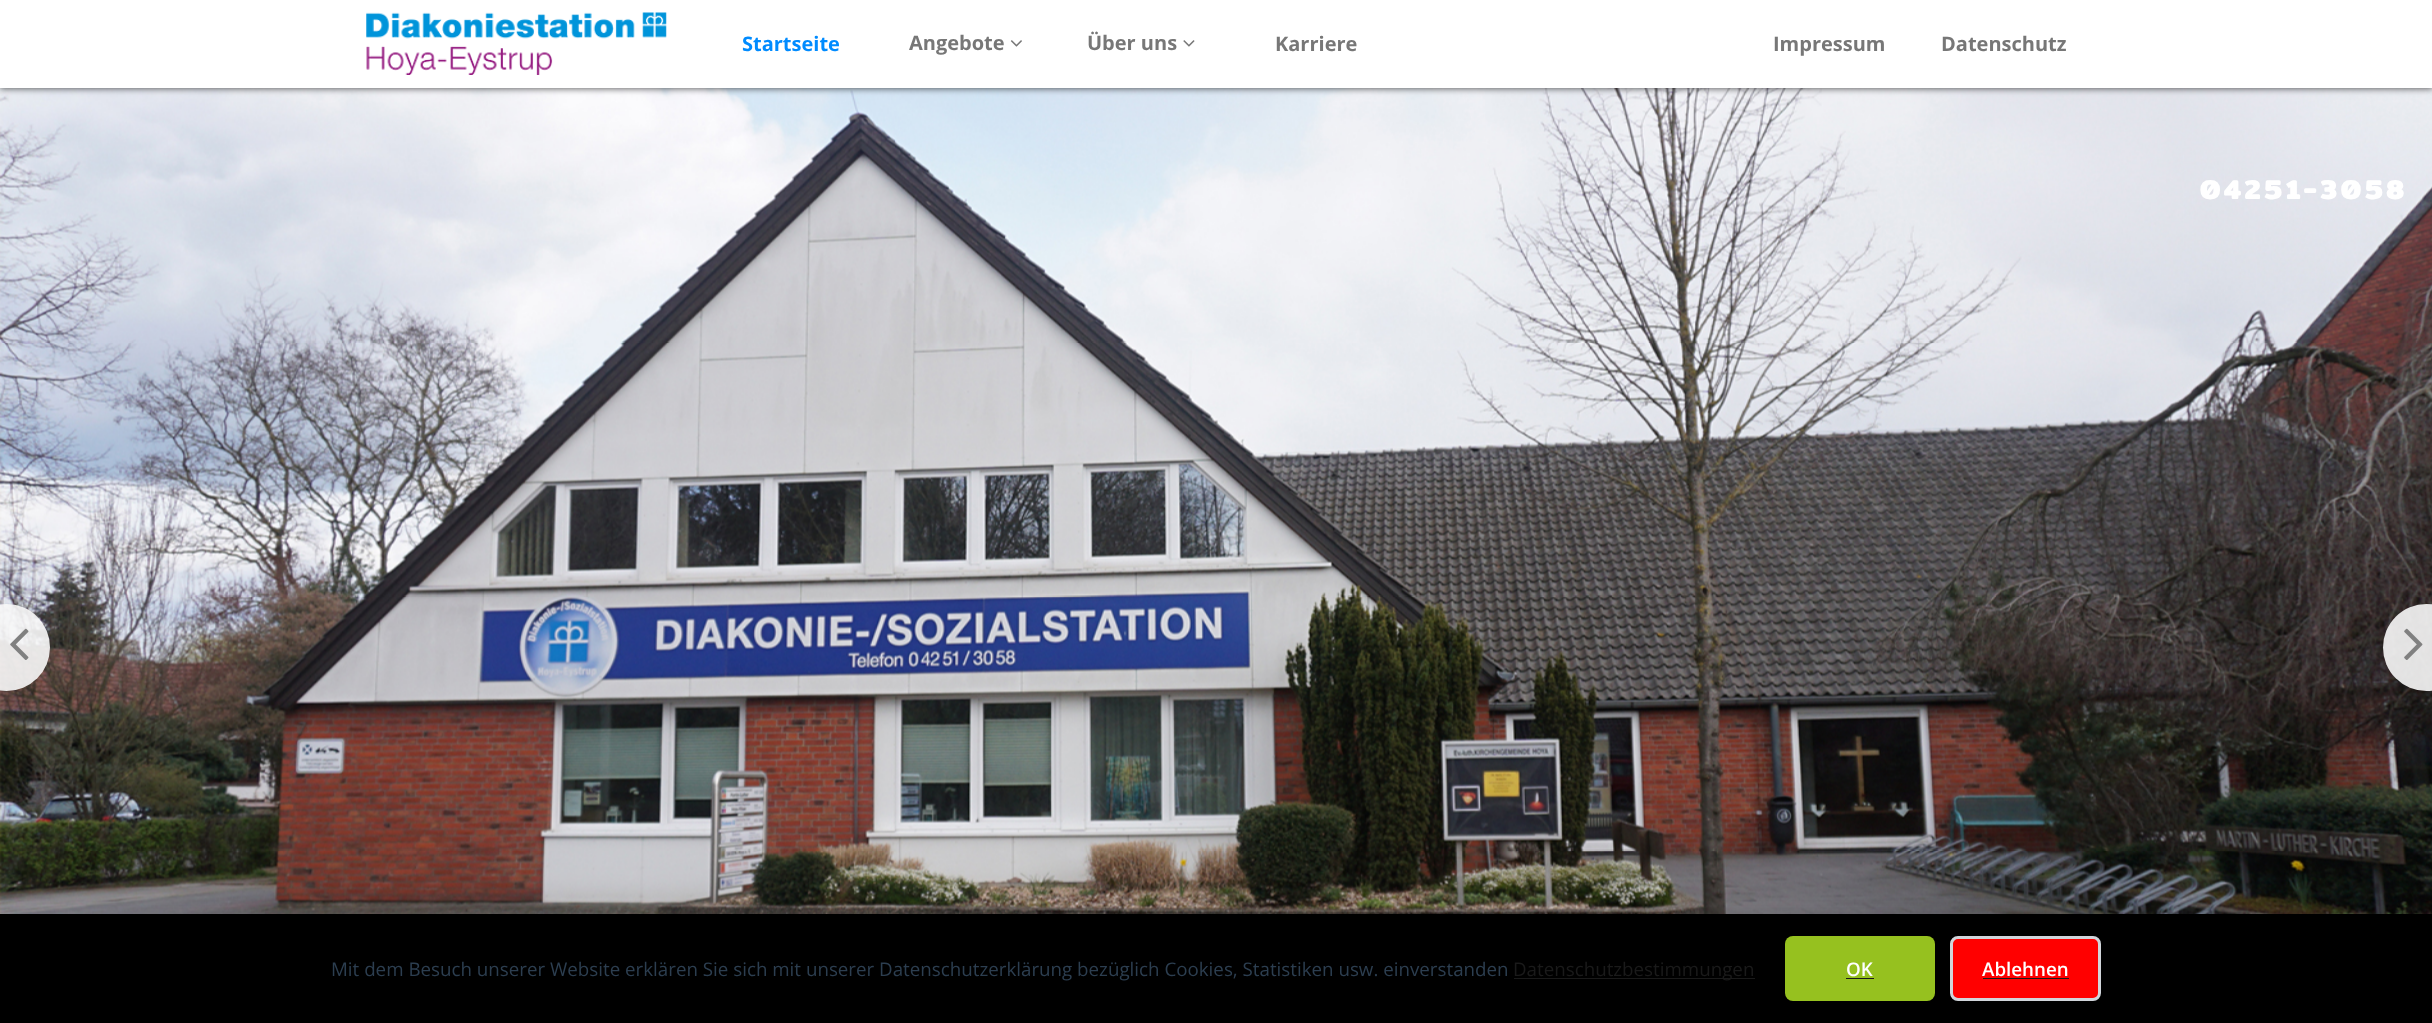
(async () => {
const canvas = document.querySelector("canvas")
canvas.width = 2432
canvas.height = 1023
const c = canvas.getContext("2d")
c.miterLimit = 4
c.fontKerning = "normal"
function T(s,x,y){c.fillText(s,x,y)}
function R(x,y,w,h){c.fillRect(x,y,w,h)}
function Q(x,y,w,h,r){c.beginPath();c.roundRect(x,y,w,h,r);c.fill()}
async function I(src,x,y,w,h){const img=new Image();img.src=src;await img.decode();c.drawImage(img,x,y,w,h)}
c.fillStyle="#fff"
R(0,0,2432,1023)
await I("4.png",0,88,2432,826)
c.fillStyle="#00000094"
c.filter="blur(3px)"
c.beginPath()
c.rect(0,1,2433,88)
c.fill()
c.filter="none"
c.fillStyle="#fff"
R(0,0,2432,88)
await I("1.png",366,12,301,63)
c.font="bold 20px Open Sans"
c.fillStyle="#008bff"
T("Startseite",742,51)
c.fillStyle="#777"
T("Angebote",909,50)
await I("2.png",1010,40,12,7)
T("Über uns",1087,50)
await I("3.png",1183,40,12,7)
T("Karriere",1275,51)
T("Impressum",1773,51)
T("Datenschutz",1941,51)
c.letterSpacing="3.75px"
c.font="bold 27.5px Mitr"
c.fillStyle="#fff"
T("04251-3058",2200,199)
c.fillStyle="#f8f8f8e6"
c.beginPath()
c.arc(6.5,647.5,43.5,0,7)
c.fill()
await I("5.png",10,628,19,32)
c.beginPath()
c.arc(2426.5,647.5,43.5,0,7)
c.fill()
await I("6.png",2404,628,19,32)
c.fillStyle="#00000014"
c.filter="blur(6px)"
c.beginPath()
c.rect(0,911,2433,110)
c.fill()
c.filter="none"
c.fillStyle="#000"
R(0,914,2432,109)
c.letterSpacing="0px"
c.font="18.75px Open Sans"
c.fillStyle="#2c3e50"
T("Mit dem Besuch unserer Website erklären Sie sich mit unserer Datenschutzerklärung bezüglich Cookies, Statistiken usw. einverstanden",331,976)
c.fillStyle="#1a1a1a"
R(1514,978,241,1)
T("Datenschutzbestimmungen",1513,976)
c.fillStyle="#96c11f"
Q(1785,936,150,65,8)
c.font="600 18.75px Open Sans"
c.fillStyle="#fff"
T("OK",1846,976)
c.fillStyle="#1a1a1a"
R(1846,978,28,1)
c.fillStyle="#f00"
c.beginPath()
c.roundRect(1951.5,937.5,148,62,6.5)
c.fill()
c.strokeStyle="#d1d5db"
c.lineWidth=3
c.stroke()
c.fillStyle="#fff"
T("Ablehnen",1982,976)
c.fillStyle="#1a1a1a"
R(1983,978,86,1)
})()
